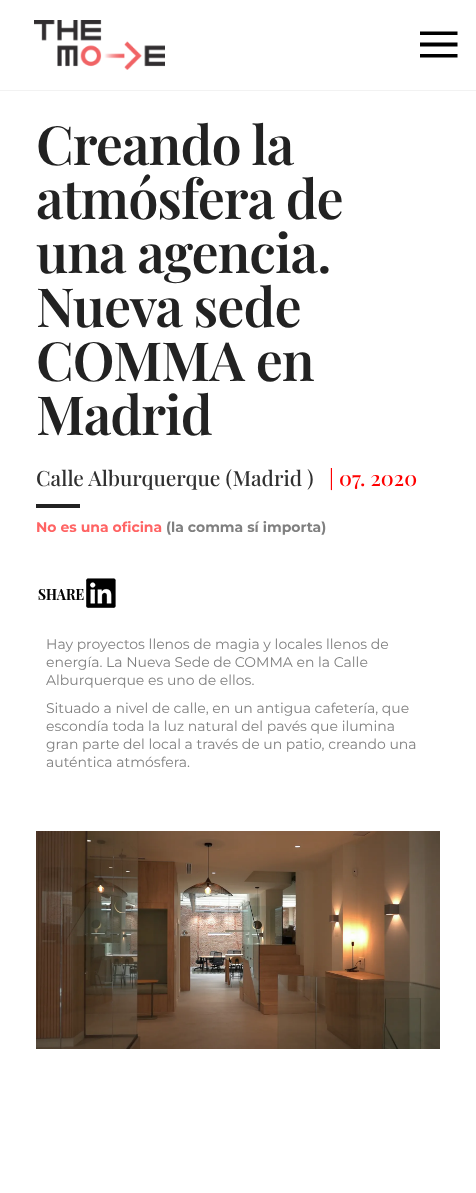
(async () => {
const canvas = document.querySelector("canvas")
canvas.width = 476
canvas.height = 1193
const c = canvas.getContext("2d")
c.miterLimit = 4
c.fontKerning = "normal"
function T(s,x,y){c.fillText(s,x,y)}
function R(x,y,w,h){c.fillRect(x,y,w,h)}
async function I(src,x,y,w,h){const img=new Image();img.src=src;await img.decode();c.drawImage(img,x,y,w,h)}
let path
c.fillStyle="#fff"
R(0,0,476,1193)
c.fillStyle="#f2f2f2"
R(0,90,476,1)
await I("1.png",34,20,131,50)
c.fillStyle="#000"
path = new Path2D("M420 46.5v-4h37.5v4zm0-11.5v-3.5h37.5v3.5zm0 22.5v-3.5h37.5v3.5z")
c.fill(path)
c.letterSpacing="-1px"
c.font="600 54px Playfair Display"
c.fillStyle="#222"
T("Creando la",36,165)
T("atmósfera de",36,219)
T("una agencia.",36,273)
T("Nueva sede",36,327)
T("COMMA en",36,381)
T("Madrid",36,435)
c.letterSpacing="0px"
c.font="500 21px Playfair Display"
c.fillStyle="#303030"
T("Calle Alburquerque (Madrid )",36,486)
c.fillStyle="#f00"
T("| 07. 2020",329,486)
c.fillStyle="#222"
R(36,504,44,4)
c.font="bold 14px Montserrat"
c.fillStyle="#ff6464"
T("No es una oficina",36,532)
c.fillStyle="#808080"
T("(la comma sí importa)",166,532)
await I("2.png",38,578,78,30)
c.font="14px Montserrat"
T("Hay proyectos llenos de magia y locales llenos de",46,649)
T("energía. La Nueva Sede de COMMA en la Calle",46,667)
T("Alburquerque es uno de ellos.",46,685)
T("Situado a nivel de calle, en un antigua cafetería, que",46,713)
T("escondía toda la luz natural del pavés que ilumina",46,731)
T("gran parte del local a través de un patio, creando una",46,749)
T("auténtica atmósfera.",46,767)
await I("3.png",36,831,404,218)
})()
